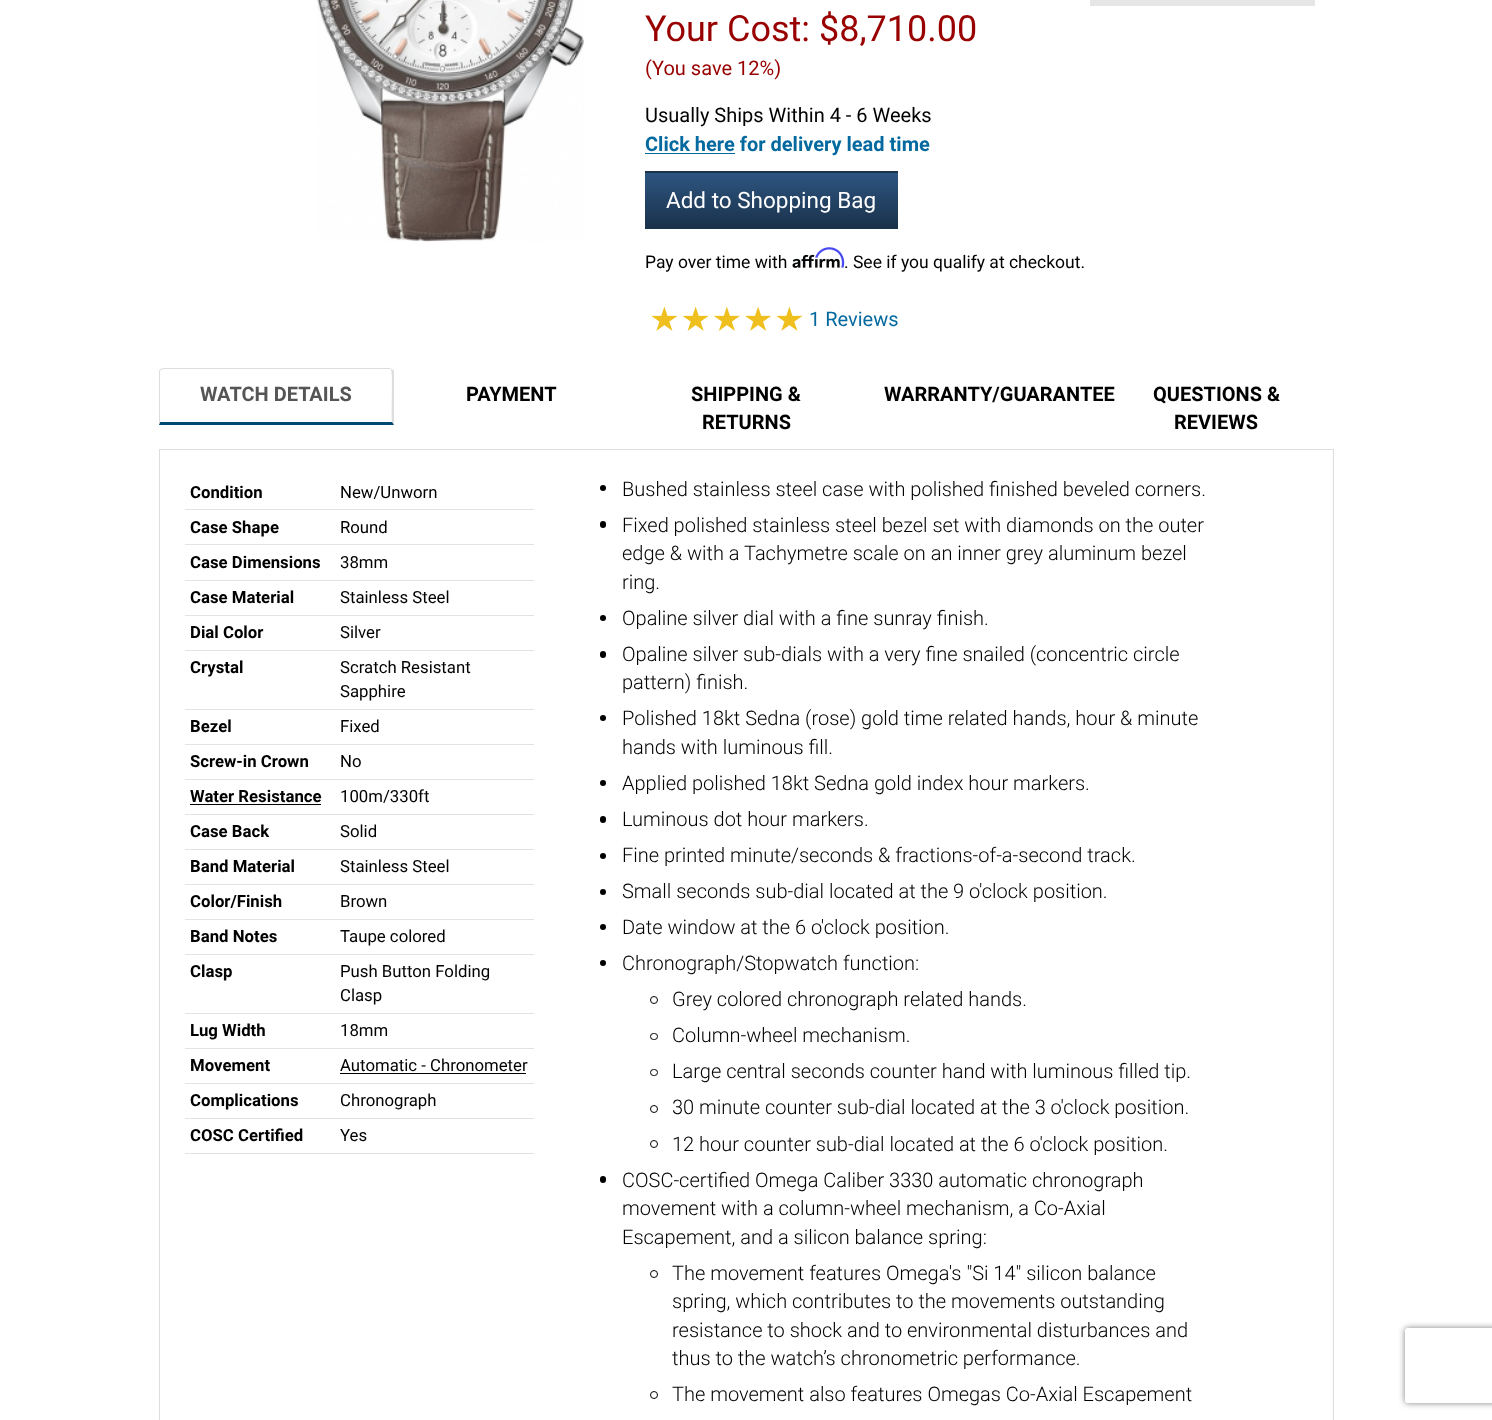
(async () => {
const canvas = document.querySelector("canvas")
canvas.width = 1492
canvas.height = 1420
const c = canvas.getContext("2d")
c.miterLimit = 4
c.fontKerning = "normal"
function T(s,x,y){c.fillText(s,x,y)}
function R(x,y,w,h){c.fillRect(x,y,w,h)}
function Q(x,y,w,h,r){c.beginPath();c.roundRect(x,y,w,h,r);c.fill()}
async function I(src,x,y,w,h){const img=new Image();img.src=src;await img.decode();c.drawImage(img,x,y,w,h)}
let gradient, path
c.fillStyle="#fff"
R(0,0,1492,1420)
await I("1.png",317,0,267,242)
c.fillStyle="#e6e6e6"
R(1090,0,225,6)
c.font="36px Roboto"
c.fillStyle="#990101"
T("Your Cost: $8,710.00",645,41)
c.font="20px Roboto"
T("(You save 12%)",645,75)
c.fillStyle="#000"
T("Usually Ships Within 4 - 6 Weeks",645,122)
c.fillStyle="#03699e"
R(645,153,90,1)
c.font="bold 20px Roboto"
T("Click here for delivery lead time",645,151)
c.fillStyle="#1b324b"
R(645,171,253,58)
gradient = c.createLinearGradient(771,173,771,228)
gradient.addColorStop(0,"#2d5580")
gradient.addColorStop(1,"#1a324b")
c.fillStyle = gradient
R(645,173,253,52)
c.font="22.5px Roboto"
c.fillStyle="#fff"
T("Add to Shopping Bag",666,208)
c.font="17.5px Roboto"
c.fillStyle="#000"
T("Pay over time with",645,268)
await I("3.png",792,254,48,14)
T(". See if you qualify at checkout.",844,268)
await I("2.png",815,247,30,21)
await I("4.png",651,306,27,25)
await I("5.png",682,306,27,25)
await I("6.png",713,306,27,25)
await I("7.png",745,306,27,25)
await I("4.png",776,306,27,25)
c.font="20px Roboto"
c.fillStyle="#03699e"
T("1 Reviews",809,326)
c.fillStyle="#ddd"
path = new Path2D("M164 368l-4 1l1 1l3-1h225c1 0 2 0 2 1l1-1l-3-1z")
c.fill(path)
path = new Path2D("M392 369l2 2v54l-2-3c-1-7 1-50-1-52z")
c.fill(path)
c.fillStyle="#004a71"
path = new Path2D("M394 425l-2-3h-232l-1 3z")
c.fill(path)
c.fillStyle="#ddd"
path = new Path2D("M160 369l-1 2v53l1-2v-51l1-1z")
c.fill(path)
c.font="bold 20px Roboto"
c.fillStyle="#555"
T("WATCH DETAILS",200,401)
c.fillStyle="#000"
T("PAYMENT",466,401)
T("SHIPPING &",691,401)
T("RETURNS",702,429)
T("WARRANTY/GUARANTEE",884,401)
T("QUESTIONS &",1153,401)
T("REVIEWS",1174,429)
c.strokeStyle="#ddd"
c.strokeRect(159.5,449.5,1174,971)
c.font="bold 16.75px Roboto"
T("Condition",190,498)
c.fillStyle="#e3e3e3"
R(185,509,349,1)
c.font="16.75px Roboto"
c.fillStyle="#000"
T("New/Unworn",340,498)
c.font="bold 16.75px Roboto"
T("Case Shape",190,533)
c.fillStyle="#e3e3e3"
R(185,544,349,1)
c.font="16.75px Roboto"
c.fillStyle="#000"
T("Round",340,533)
c.font="bold 16.75px Roboto"
T("Case Dimensions",190,568)
c.fillStyle="#e3e3e3"
R(185,580,349,1)
c.font="16.75px Roboto"
c.fillStyle="#000"
T("38mm",340,568)
c.font="bold 16.75px Roboto"
T("Case Material",190,603)
c.fillStyle="#e3e3e3"
R(185,615,349,1)
c.font="16.75px Roboto"
c.fillStyle="#000"
T("Stainless Steel",340,603)
c.font="bold 16.75px Roboto"
T("Dial Color",190,638)
c.fillStyle="#e3e3e3"
R(185,650,349,1)
c.font="16.75px Roboto"
c.fillStyle="#000"
T("Silver",340,638)
c.font="bold 16.75px Roboto"
T("Crystal",190,673)
c.fillStyle="#e3e3e3"
R(185,709,349,1)
c.font="16.75px Roboto"
c.fillStyle="#000"
T("Scratch Resistant",340,673)
T("Sapphire",340,697)
c.font="bold 16.75px Roboto"
T("Bezel",190,732)
c.fillStyle="#e3e3e3"
R(185,744,349,1)
c.font="16.75px Roboto"
c.fillStyle="#000"
T("Fixed",340,732)
c.font="bold 16.75px Roboto"
T("Screw-in Crown",190,767)
c.fillStyle="#e3e3e3"
R(185,779,349,1)
c.font="16.75px Roboto"
c.fillStyle="#000"
T("No",340,767)
c.font="bold 16.75px Roboto"
T("Water Resistance",190,802)
R(190,804,131,1)
c.fillStyle="#e3e3e3"
R(185,814,349,1)
c.font="16.75px Roboto"
c.fillStyle="#000"
T("100m/330ft",340,802)
c.font="bold 16.75px Roboto"
T("Case Back",190,837)
c.fillStyle="#e3e3e3"
R(185,849,349,1)
c.font="16.75px Roboto"
c.fillStyle="#000"
T("Solid",340,837)
c.font="bold 16.75px Roboto"
T("Band Material",190,872)
c.fillStyle="#e3e3e3"
R(185,884,349,1)
c.font="16.75px Roboto"
c.fillStyle="#000"
T("Stainless Steel",340,872)
c.font="bold 16.75px Roboto"
T("Color/Finish",190,907)
c.fillStyle="#e3e3e3"
R(185,919,349,1)
c.font="16.75px Roboto"
c.fillStyle="#000"
T("Brown",340,907)
c.font="bold 16.75px Roboto"
T("Band Notes",190,942)
c.fillStyle="#e3e3e3"
R(185,954,349,1)
c.font="16.75px Roboto"
c.fillStyle="#000"
T("Taupe colored",340,942)
c.font="bold 16.75px Roboto"
T("Clasp",190,977)
c.fillStyle="#e3e3e3"
R(185,1013,349,1)
c.font="16.75px Roboto"
c.fillStyle="#000"
T("Push Button Folding",340,977)
T("Clasp",340,1001)
c.font="bold 16.75px Roboto"
T("Lug Width",190,1036)
c.fillStyle="#e3e3e3"
R(185,1048,349,1)
c.font="16.75px Roboto"
c.fillStyle="#000"
T("18mm",340,1036)
c.font="bold 16.75px Roboto"
T("Movement",190,1071)
c.fillStyle="#e3e3e3"
R(185,1083,349,1)
c.font="16.75px Roboto"
c.fillStyle="#000"
T("Automatic - Chronometer",340,1071)
R(340,1073,186,1)
c.font="bold 16.75px Roboto"
T("Complications",190,1106)
c.fillStyle="#e3e3e3"
R(185,1118,349,1)
c.font="16.75px Roboto"
c.fillStyle="#000"
T("Chronograph",340,1106)
c.font="bold 16.75px Roboto"
T("COSC Certified",190,1141)
c.fillStyle="#e3e3e3"
R(185,1153,349,1)
c.font="16.75px Roboto"
c.fillStyle="#000"
T("Yes",340,1141)
c.beginPath()
c.arc(603,488,3,0,7)
c.fill()
c.font="300 20px Roboto"
T("Bushed stainless steel case with polished finished beveled corners.",622,496)
Q(600,521,6,7,3)
T("Fixed polished stainless steel bezel set with diamonds on the outer",622,532)
T("edge & with a Tachymetre scale on an inner grey aluminum bezel",622,560)
T("ring.",622,589)
c.beginPath()
c.arc(603,618,3,0,7)
c.fill()
T("Opaline silver dial with a fine sunray finish.",622,625)
Q(600,651,6,7,3)
T("Opaline silver sub-dials with a very fine snailed (concentric circle",622,661)
T("pattern) finish.",622,689)
c.beginPath()
c.arc(603,718,3,0,7)
c.fill()
T("Polished 18kt Sedna (rose) gold time related hands, hour & minute",622,725)
T("hands with luminous fill.",622,754)
c.beginPath()
c.arc(603,783,3,0,7)
c.fill()
T("Applied polished 18kt Sedna gold index hour markers.",622,790)
Q(600,816,6,7,3)
T("Luminous dot hour markers.",622,826)
c.beginPath()
c.arc(603,856,3,0,7)
c.fill()
T("Fine printed minute/seconds & fractions-of-a-second track.",622,862)
c.beginPath()
c.arc(603,892,3,0,7)
c.fill()
T("Small seconds sub-dial located at the 9 o'clock position.",622,898)
c.beginPath()
c.arc(603,927,3,0,7)
c.fill()
T("Date window at the 6 o'clock position.",622,934)
c.beginPath()
c.arc(603,963,3,0,7)
c.fill()
T("Chronograph/Stopwatch function:",622,970)
c.beginPath()
c.arc(654,1000,3.5,0,7)
c.strokeStyle="#000"
c.stroke()
T("Grey colored chronograph related hands.",672,1006)
c.beginPath()
c.roundRect(650.5,1033.5,7,6,3)
c.stroke()
T("Column-wheel mechanism.",672,1042)
c.beginPath()
c.roundRect(650.5,1069.5,7,6,3)
c.stroke()
T("Large central seconds counter hand with luminous filled tip.",672,1078)
c.beginPath()
c.arc(654,1109,3.5,0,7)
c.stroke()
T("30 minute counter sub-dial located at the 3 o'clock position.",672,1114)
c.beginPath()
c.arc(654,1144,3.5,0,7)
c.stroke()
T("12 hour counter sub-dial located at the 6 o'clock position.",672,1151)
Q(600,1176,6,7,3)
T("COSC-certified Omega Caliber 3330 automatic chronograph",622,1187)
T("movement with a column-wheel mechanism, a Co-Axial",622,1215)
T("Escapement, and a silicon balance spring:",622,1244)
c.beginPath()
c.arc(654,1274,3.5,0,7)
c.stroke()
T("The movement features Omega's \"Si 14\" silicon balance",672,1280)
T("spring, which contributes to the movements outstanding",672,1308)
T("resistance to shock and to environmental disturbances and",672,1337)
T("thus to the watch’s chronometric performance.",672,1365)
c.beginPath()
c.arc(654,1395,3.5,0,7)
c.stroke()
T("The movement also features Omegas Co-Axial Escapement",672,1401)
c.save()
path = new Path2D("M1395 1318h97v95h-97zm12.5 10h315c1.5 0 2.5 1 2.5 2.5v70c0 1.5-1 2.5-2.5 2.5h-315c-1.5 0-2.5-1-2.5-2.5v-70c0-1.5 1-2.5 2.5-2.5z")
c.clip(path,"evenodd")
c.fillStyle="#808080"
c.filter="blur(3px)"
c.beginPath()
c.roundRect(1405,1328,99,75,2.5)
c.fill()
c.filter="none"
c.restore()
})()
